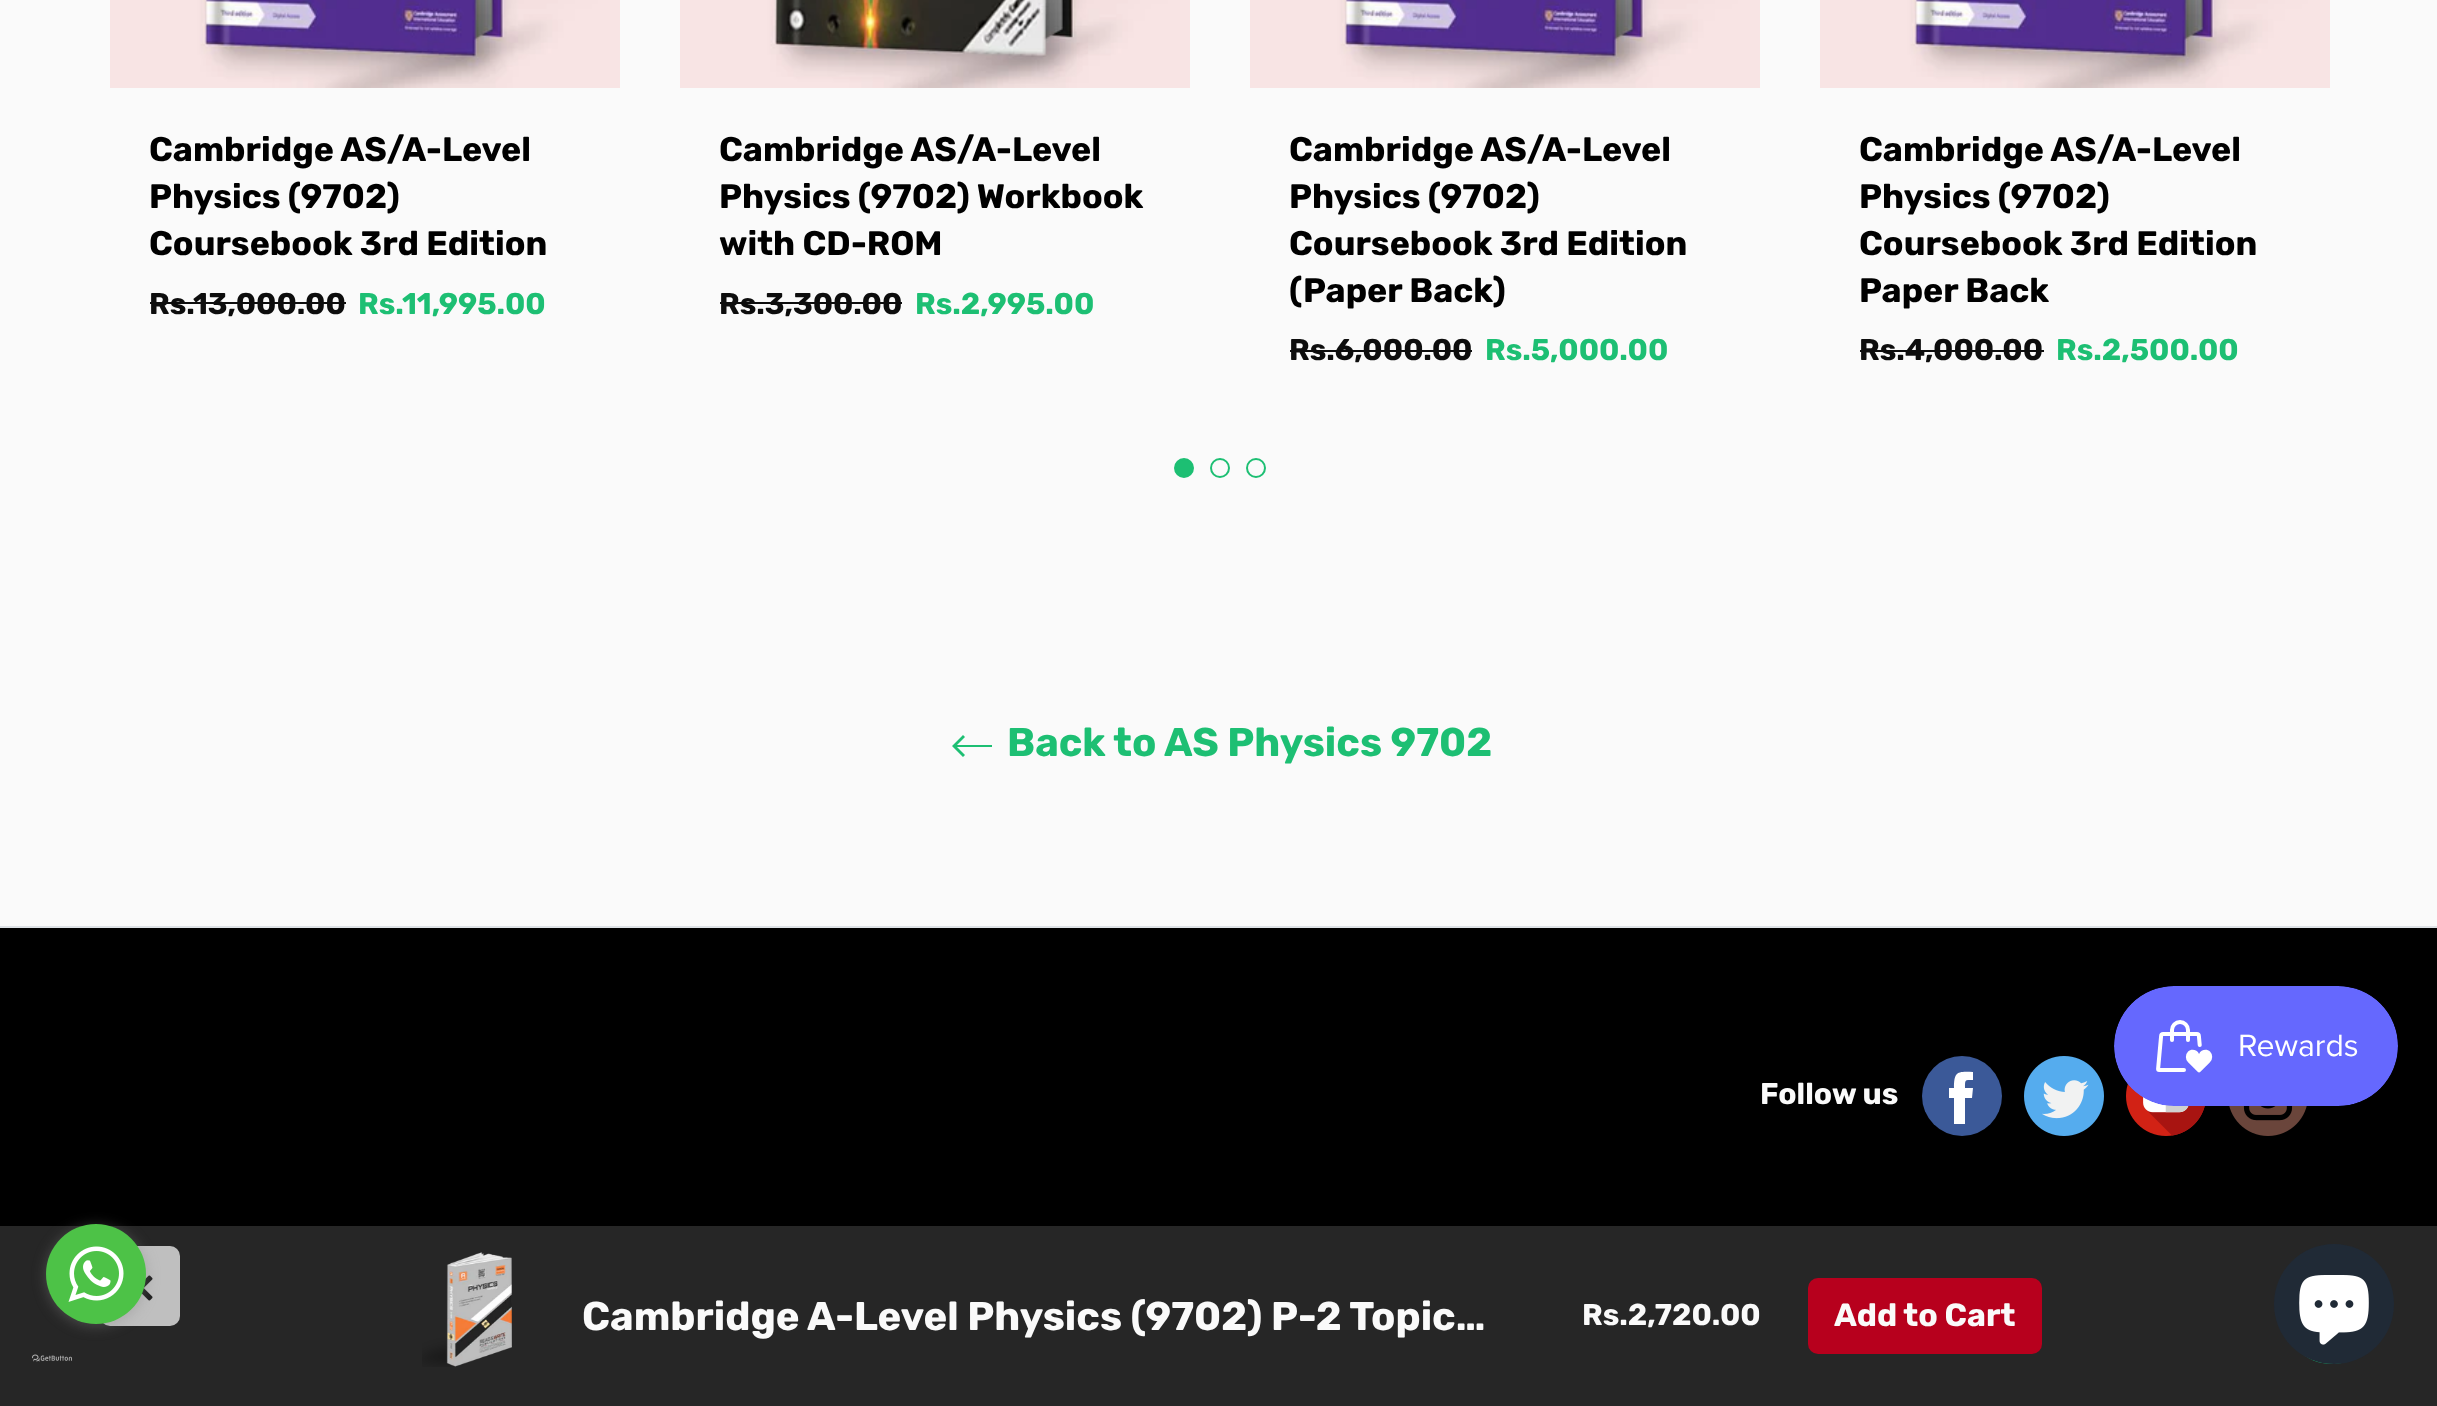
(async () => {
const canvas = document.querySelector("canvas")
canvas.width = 2437
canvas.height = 1406
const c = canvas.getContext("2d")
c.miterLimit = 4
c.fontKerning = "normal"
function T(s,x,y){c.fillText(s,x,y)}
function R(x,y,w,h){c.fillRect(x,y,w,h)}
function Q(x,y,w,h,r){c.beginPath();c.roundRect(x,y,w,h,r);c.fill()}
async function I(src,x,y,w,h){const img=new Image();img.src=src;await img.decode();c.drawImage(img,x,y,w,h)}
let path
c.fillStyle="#fafafa"
R(0,0,2437,1406)
await I("1.png",110,0,510,88)
c.font="bold 34px Rubik"
c.fillStyle="#000"
T("Cambridge AS/A-Level",149,161)
T("Physics (9702)",149,208)
T("Coursebook 3rd Edition",149,255)
c.font="bold 30px Rubik"
c.fillStyle="#0d0d0d"
T("Rs.13,000.00",149,314)
R(150,302,196,2)
c.fillStyle="#1dbf73"
T("Rs.11,995.00",358,314)
await I("2.png",680,0,510,88)
c.font="bold 34px Rubik"
c.fillStyle="#000"
T("Cambridge AS/A-Level",719,161)
T("Physics (9702) Workbook",719,208)
T("with CD-ROM",719,255)
c.font="bold 30px Rubik"
c.fillStyle="#0d0d0d"
T("Rs.3,300.00",719,314)
R(720,302,182,2)
c.fillStyle="#1dbf73"
T("Rs.2,995.00",915,314)
await I("1.png",1250,0,510,88)
c.font="bold 34px Rubik"
c.fillStyle="#000"
T("Cambridge AS/A-Level",1289,161)
T("Physics (9702)",1289,208)
T("Coursebook 3rd Edition",1289,255)
T("(Paper Back)",1289,302)
c.font="bold 30px Rubik"
c.fillStyle="#0d0d0d"
T("Rs.6,000.00",1289,360)
R(1290,350,182,2)
c.fillStyle="#1dbf73"
T("Rs.5,000.00",1485,360)
await I("3.png",1820,0,510,88)
c.font="bold 34px Rubik"
c.fillStyle="#000"
T("Cambridge AS/A-Level",1859,161)
T("Physics (9702)",1859,208)
T("Coursebook 3rd Edition",1859,255)
T("Paper Back",1859,302)
c.font="bold 30px Rubik"
c.fillStyle="#0d0d0d"
T("Rs.4,000.00",1859,360)
R(1860,350,184,2)
c.fillStyle="#1dbf73"
T("Rs.2,500.00",2056,360)
c.beginPath()
c.arc(1184,468,9,0,7)
c.fill()
c.strokeStyle="#1dbf73"
c.lineWidth=2
c.stroke()
c.beginPath()
c.arc(1220,468,9,0,7)
c.stroke()
c.beginPath()
c.arc(1256,468,9,0,7)
c.stroke()
c.fillStyle="#262626"
R(0,1226,2437,180)
c.fillStyle="#bfbfbf"
Q(100,1246,80,80,10)
await I("4.png",141,1275,12,26)
await I("5.png",422,1252,90,115)
c.font="bold 40px Rubik"
c.fillStyle="#fafafa"
T("Cambridge A-Level Physics (9702) P-2 Topic…",582,1330)
c.font="bold 30px Rubik"
T("Rs.2,720.00",1582,1325)
c.fillStyle="#b7001d"
Q(1808,1278,234,76,10)
c.font="bold 32px Rubik"
c.fillStyle="#fafafa"
T("Add to Cart",1834,1326)
c.fillStyle="#1dbf73"
path = new Path2D("M992 745h-35l8-8l-2-2l-11 11l11 11l2-2l-8-8h35z")
c.fill(path)
c.font="bold 40px Rubik"
T("Back to AS Physics 9702",1007,756)
c.fillStyle="#000"
R(0,928,2437,298)
c.fillStyle="#dee2e6"
R(0,926,2437,2)
c.font="bold 30px Rubik"
c.fillStyle="#fafafa"
T("Follow us",1760,1104)
c.fillStyle="#3b5998"
c.beginPath()
c.arc(1962,1096,40,0,7)
c.fill()
c.fillStyle="#fff"
path = new Path2D("M1972 1098h-7v26h-11v-26h-5v-10h5c0-16 3-17 19-16v8c-8 0-8-1-8 8h8z")
c.fill(path)
await I("6.png",2024,1056,80,80)
await I("7.png",2126,1083,79,53)
await I("8.png",2229,1106,78,30)
await I("9.png",2114,986,284,120)
c.fillStyle="#88888866"
c.filter="blur(7px)"
c.beginPath()
c.roundRect(46,1226,100,100,50)
c.fill()
c.filter="none"
c.fillStyle="#4dc247"
c.beginPath()
c.arc(96,1274,50,0,7)
c.fill()
await I("10.png",68,1246,56,56)
await I("11.png",32,1354,40,8)
c.fillStyle="#1dbf73"
c.beginPath()
c.arc(2332,1314,50,0,7)
c.fill()
c.fillStyle="#202a36"
c.beginPath()
c.arc(2334,1304,60,0,7)
c.fill()
await I("12.png",2299,1275,70,70)
})()
